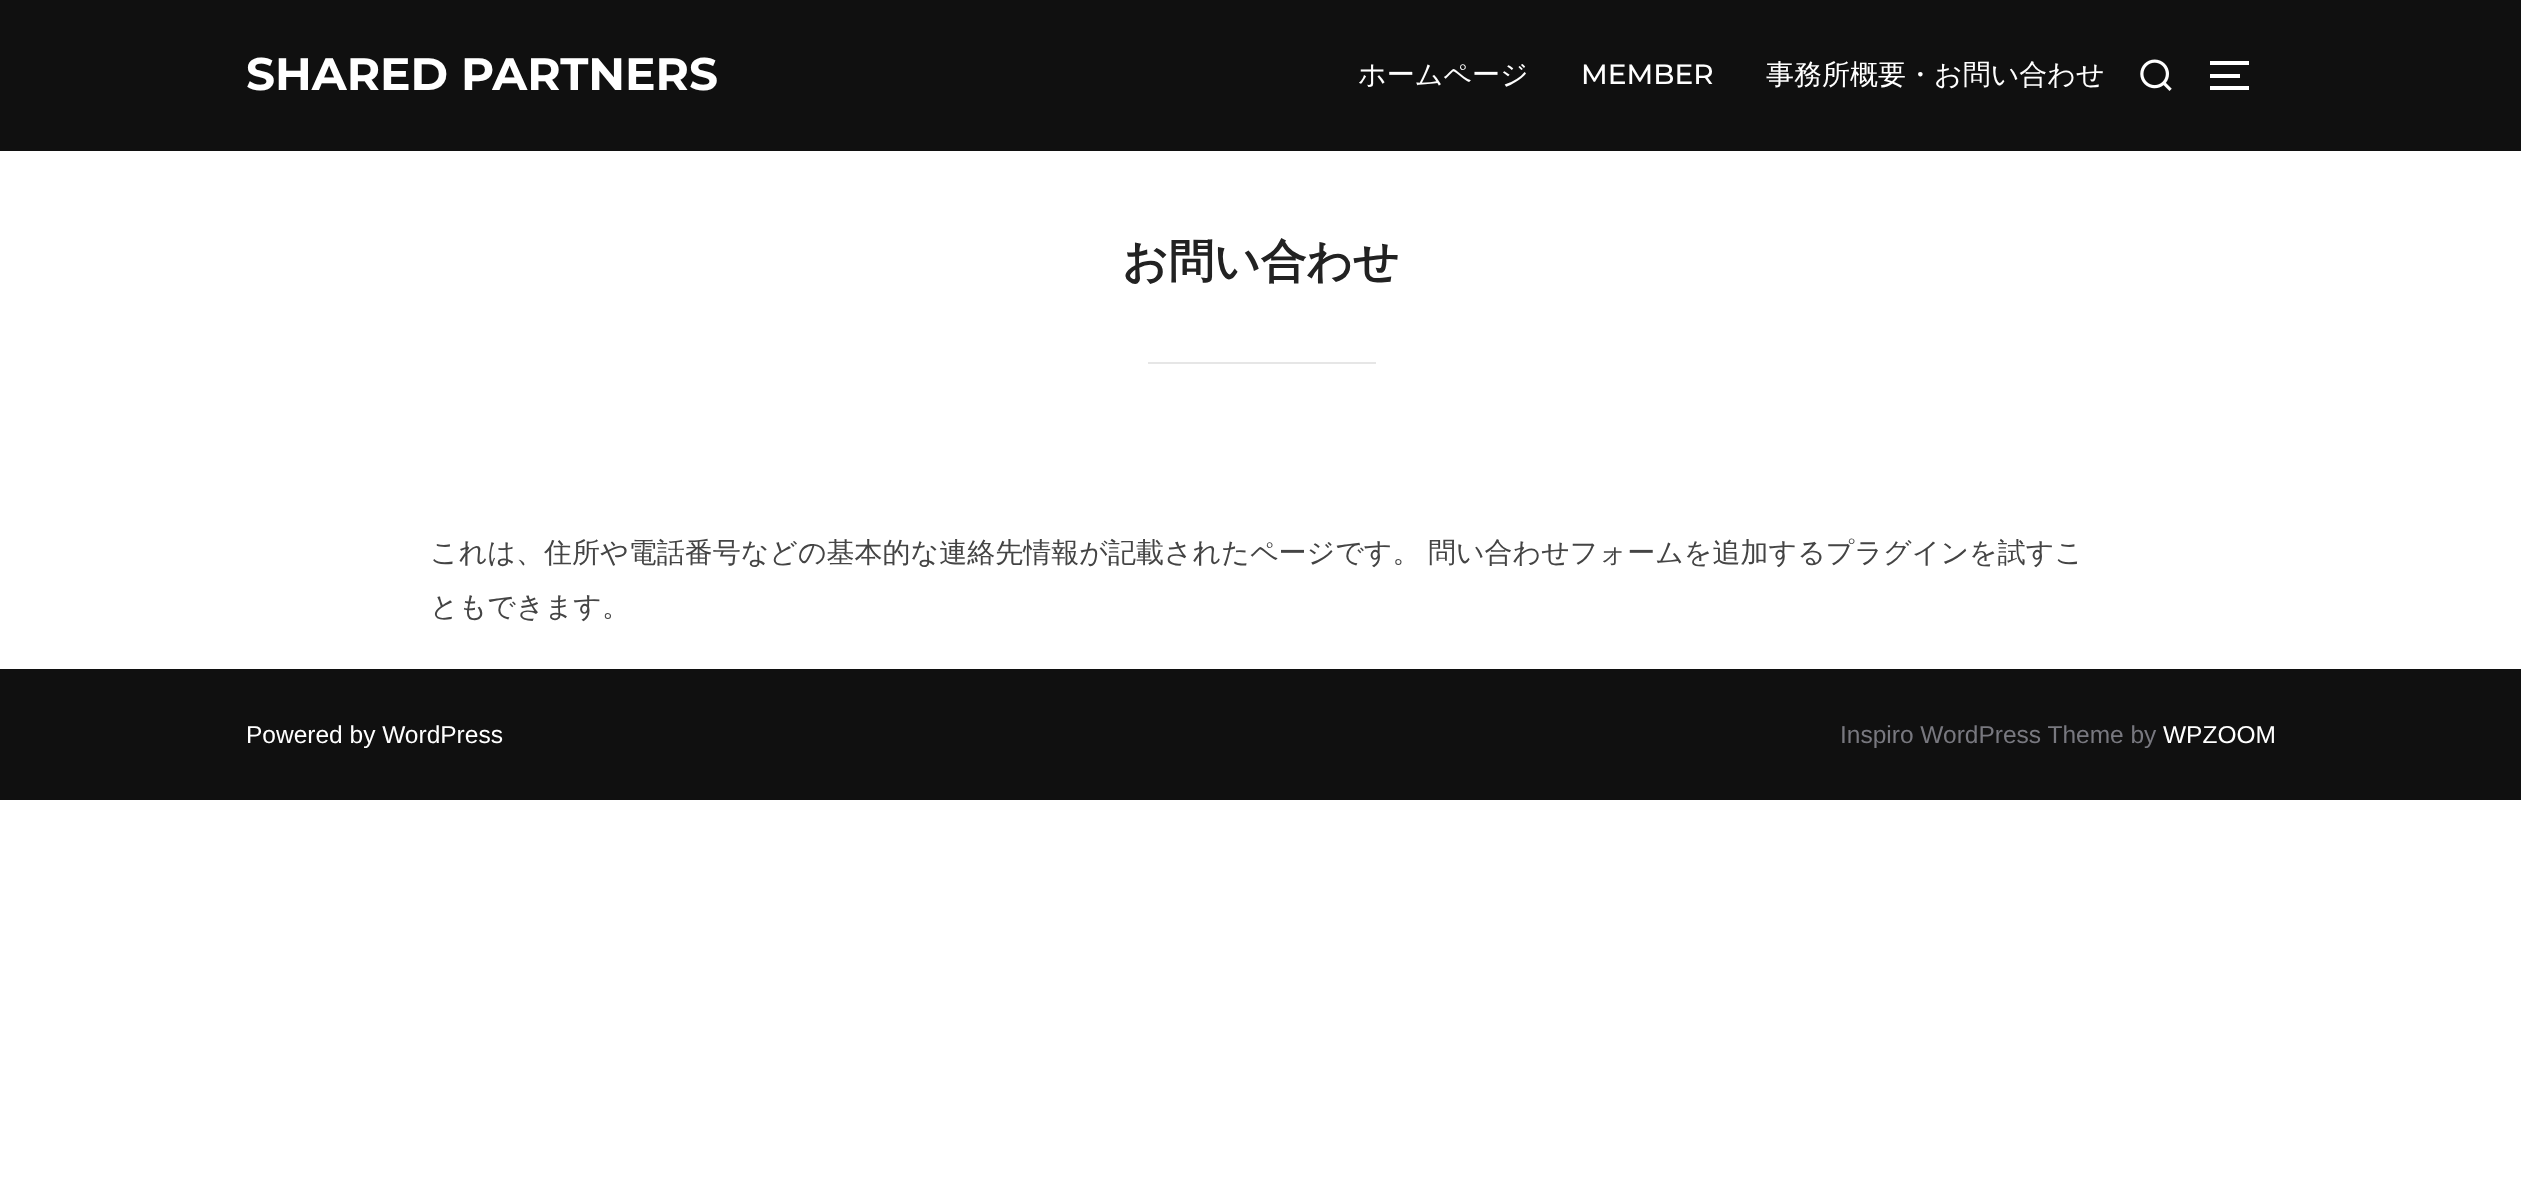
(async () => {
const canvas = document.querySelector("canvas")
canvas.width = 2521
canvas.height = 1182
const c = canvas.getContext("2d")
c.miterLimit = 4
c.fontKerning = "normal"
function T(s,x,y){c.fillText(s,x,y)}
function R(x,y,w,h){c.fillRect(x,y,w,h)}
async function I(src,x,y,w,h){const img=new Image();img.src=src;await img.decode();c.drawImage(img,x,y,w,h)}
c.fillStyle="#fff"
R(0,0,2521,1182)
c.fillStyle="#101010"
R(0,0,2521,151)
c.font="bold 45.5px Montserrat"
c.fillStyle="#fff"
T("SHARED PARTNERS",246,90)
c.font="500 28px WenQuanYi Zen Hei"
T("ホームページ",1358,84)
c.font="500 28px Montserrat"
T("MEMBER",1581,84)
c.font="500 28px WenQuanYi Zen Hei"
T("事務所概要・お問い合わせ",1766,84)
await I("1.png",2140,59,32,32)
R(2210,61,39,4)
R(2210,74,30,4)
R(2210,86,39,4)
c.font="bold 45.5px WenQuanYi Zen Hei"
c.fillStyle="#222"
T("お問い合わせ",1122,277)
c.fillStyle="#e6e6e6"
R(1148,362,228,2)
c.wordSpacing="-1px"
c.font="500 28px WenQuanYi Zen Hei"
c.fillStyle="#444"
T("これは、住所や電話番号などの基本的な連絡先情報が記載されたページです。 問い合わせフォームを追加するプラグインを試すこ",430,562)
c.wordSpacing="0px"
T("ともできます。",430,616)
c.fillStyle="#101010"
R(0,669,2521,131)
c.font="24.5px Liberation Sans"
c.fillStyle="#fff"
T("Powered by WordPress",246,743)
c.fillStyle="#78787f"
T("Inspiro WordPress Theme by",1840,743)
c.fillStyle="#fff"
T("WPZOOM",2163,743)
})()
